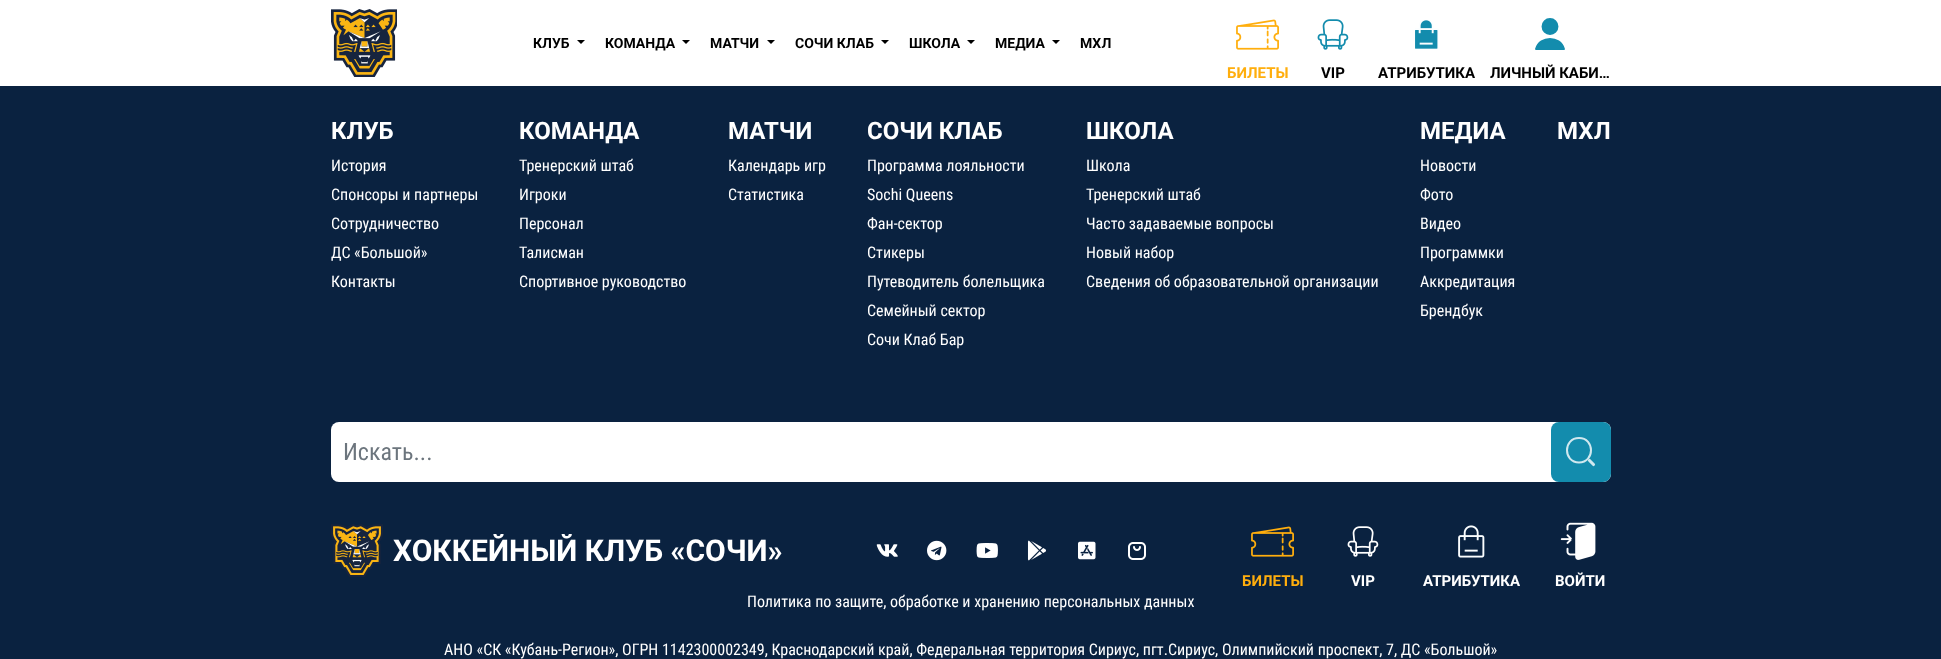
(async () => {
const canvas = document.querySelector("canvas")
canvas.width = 1941
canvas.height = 659
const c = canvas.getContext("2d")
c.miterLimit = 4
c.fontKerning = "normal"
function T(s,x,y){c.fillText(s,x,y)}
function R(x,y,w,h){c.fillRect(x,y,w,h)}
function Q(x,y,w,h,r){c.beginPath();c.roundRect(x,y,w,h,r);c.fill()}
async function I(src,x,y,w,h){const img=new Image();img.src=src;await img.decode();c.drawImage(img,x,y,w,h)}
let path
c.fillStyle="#0a2240"
R(0,0,1941,659)
c.fillStyle="#fff"
R(0,0,1941,86)
await I("1.png",331,9,66,68)
c.font="bold 14px Roboto"
c.fillStyle="#000"
T("КЛУБ",533,48)
path = new Path2D("M577 40h8l-4 4z")
c.fill(path)
T("КОМАНДА",605,48)
path = new Path2D("M682 40h8l-4 4z")
c.fill(path)
T("МАТЧИ",710,48)
path = new Path2D("M767 40h8l-4 4z")
c.fill(path)
T("СОЧИ КЛАБ",795,48)
path = new Path2D("M881 40h8l-4 4z")
c.fill(path)
T("ШКОЛА",909,48)
path = new Path2D("M967 40h8l-4 4z")
c.fill(path)
T("МЕДИА",995,48)
path = new Path2D("M1052 40h8l-4 4z")
c.fill(path)
T("МХЛ",1080,48)
await I("2.png",1236,19,43,31)
c.font="bold 15px Roboto"
c.fillStyle="#ffae0d"
T("БИЛЕТЫ",1227,78)
await I("3.png",1317,19,32,31)
c.fillStyle="#000"
T("VIP",1321,78)
await I("4.png",1415,20,24,29)
T("АТРИБУТИКА",1378,78)
c.fillStyle="#138cad"
c.beginPath()
c.arc(1550,26.5,7.5,0,7)
c.fill()
c.strokeStyle="#138cad"
c.lineWidth=1.9
c.stroke()
path = new Path2D("M1536 49c4-13.5 24-13.5 28 0z")
c.fill(path,"evenodd")
c.lineCap="round"
c.lineJoin="round"
c.stroke(path)
c.fillStyle="#000"
T("ЛИЧНЫЙ КАБИ…",1490,78)
c.font="bold 24px Roboto"
c.fillStyle="#fff"
T("КЛУБ",331,139)
c.font="16px Roboto Condensed"
T("История",331,171)
T("Спонсоры и партнеры",331,200)
T("Сотрудничество",331,229)
T("ДС «Большой»",331,258)
T("Контакты",331,287)
c.font="bold 24px Roboto"
T("КОМАНДА",519,139)
c.font="16px Roboto Condensed"
T("Тренерский штаб",519,171)
T("Игроки",519,200)
T("Персонал",519,229)
T("Талисман",519,258)
T("Спортивное руководство",519,287)
c.font="bold 24px Roboto"
T("МАТЧИ",728,139)
c.font="16px Roboto Condensed"
T("Календарь игр",728,171)
T("Статистика",728,200)
c.font="bold 24px Roboto"
T("СОЧИ КЛАБ",867,139)
c.font="16px Roboto Condensed"
T("Программа лояльности",867,171)
T("Sochi Queens",867,200)
T("Фан-сектор",867,229)
T("Стикеры",867,258)
T("Путеводитель болельщика",867,287)
T("Семейный сектор",867,316)
T("Сочи Клаб Бар",867,345)
c.font="bold 24px Roboto"
T("ШКОЛА",1086,139)
c.font="16px Roboto Condensed"
T("Школа",1086,171)
T("Тренерский штаб",1086,200)
T("Часто задаваемые вопросы",1086,229)
T("Новый набор",1086,258)
T("Сведения об образовательной организации",1086,287)
c.font="bold 24px Roboto"
T("МЕДИА",1420,139)
c.font="16px Roboto Condensed"
T("Новости",1420,171)
T("Фото",1420,200)
T("Видео",1420,229)
T("Программки",1420,258)
T("Аккредитация",1420,287)
T("Брендбук",1420,316)
c.font="bold 24px Roboto"
T("МХЛ",1557,139)
Q(331,422,1280,60,8)
c.font="24px Roboto Condensed"
c.fillStyle="#6c757d"
T("Искать...",343,460)
c.fillStyle="#138cad"
Q(1551,422,60,60,8)
path = new Path2D("M1579 462.5c16 0 16-24.5 0-24.5c-16 0-16 24.5 0 24.5z")
c.strokeStyle="#d0e8ef"
c.lineWidth=2
c.stroke(path)
path = new Path2D("M1589.5 460.5l4 4")
c.lineWidth=3.1
c.stroke(path)
await I("5.png",331,524,52,53)
c.font="bold 30px Roboto"
c.fillStyle="#fff"
T("ХОККЕЙНЫЙ КЛУБ «СОЧИ»",393,561)
await I("6.png",876,544,22,13)
await I("7.png",927,540,20,21)
await I("8.png",976,543,22,15)
await I("9.png",1027,540,19,21)
await I("10.png",1078,541,18,19)
await I("11.png",1128,542,18,18)
await I("12.png",1251,526,43,31)
c.font="bold 15px Roboto"
c.fillStyle="#ffae0d"
T("БИЛЕТЫ",1242,586)
await I("13.png",1347,526,32,31)
c.fillStyle="#fff"
T("VIP",1351,586)
await I("14.png",1458,525,27,33)
T("АТРИБУТИКА",1423,586)
await I("15.png",1560,522,36,38)
T("ВОЙТИ",1555,586)
c.font="16px Roboto Condensed"
T("Политика по защите, обработке и хранению персональных данных",747,607)
T("АНО «СК «Кубань-Регион», ОГРН 1142300002349, Краснодарский край, Федеральная территория Сириус, пгт.Сириус, Олимпийский проспект, 7, ДС «Большой»",444,655)
})()
